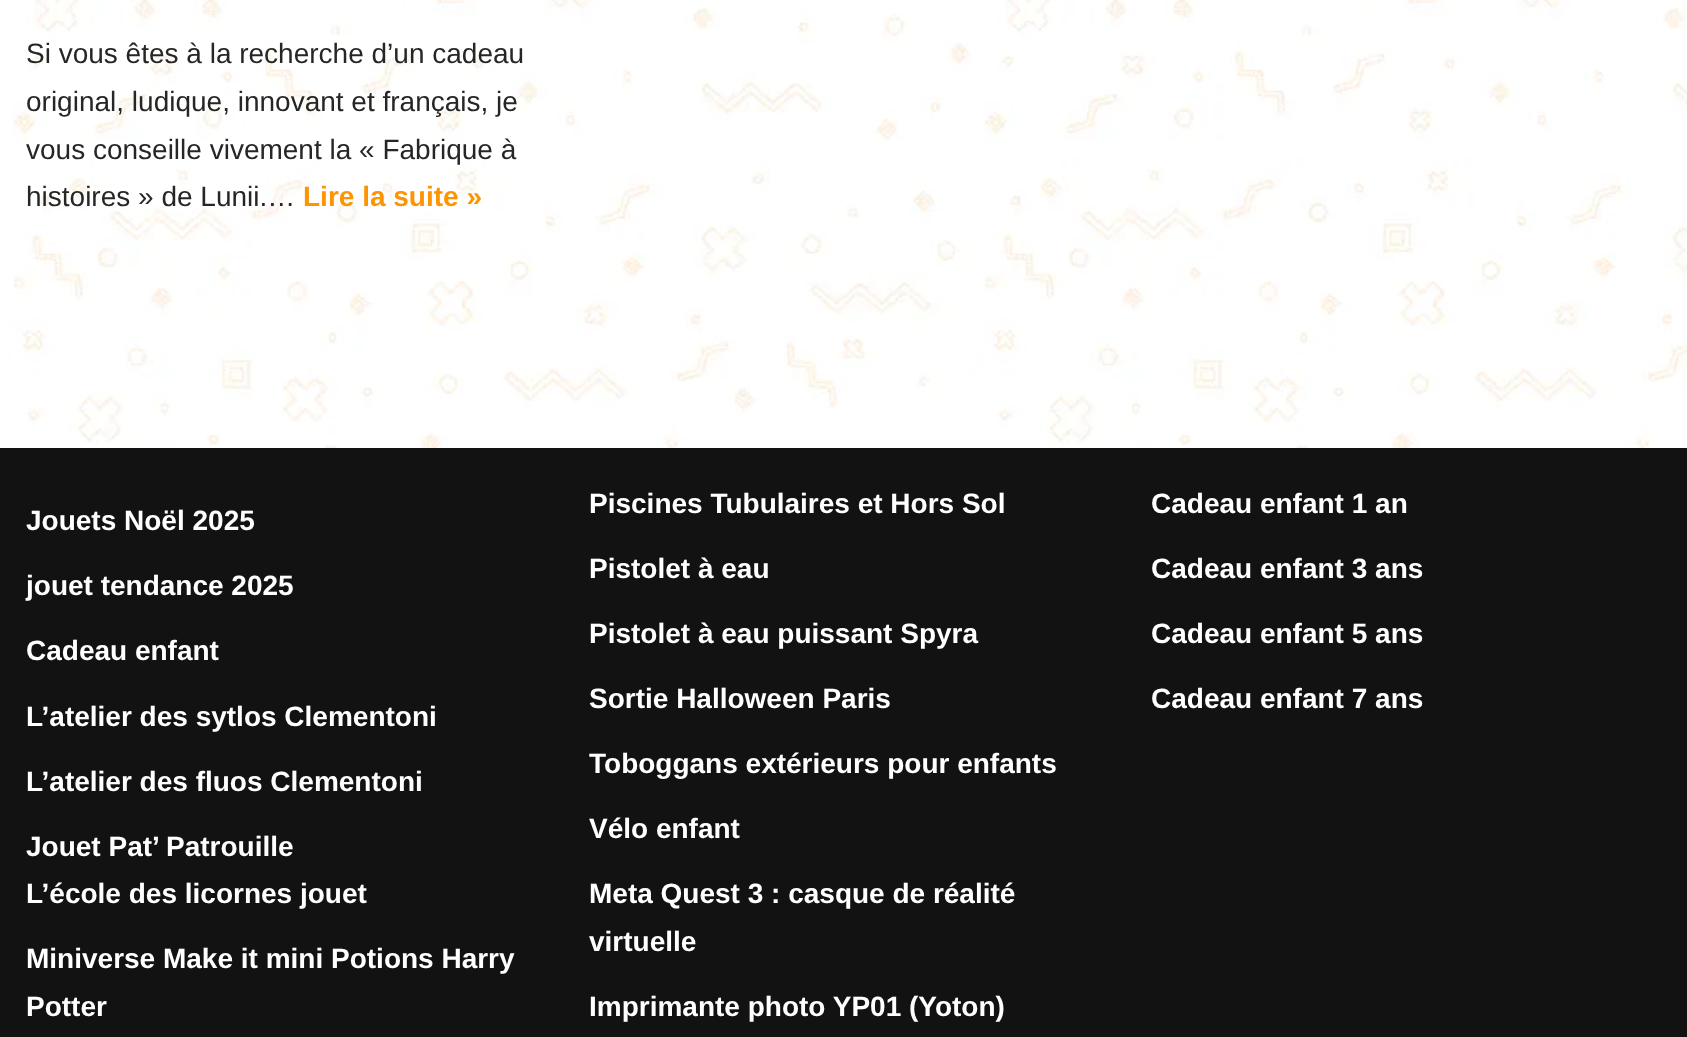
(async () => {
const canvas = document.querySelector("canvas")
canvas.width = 1687
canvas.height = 1037
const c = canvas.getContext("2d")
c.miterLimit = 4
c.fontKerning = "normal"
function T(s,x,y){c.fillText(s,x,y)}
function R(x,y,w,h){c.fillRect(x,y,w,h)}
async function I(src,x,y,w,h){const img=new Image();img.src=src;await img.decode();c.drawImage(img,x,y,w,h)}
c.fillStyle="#fff"
R(0,0,1687,1037)
await I("1.png",6,0,1681,448)
c.font="28px Liberation Sans"
c.fillStyle="#272626"
T("Si vous êtes à la recherche d’un cadeau",26,63)
T("original, ludique, innovant et français, je",26,111)
T("vous conseille vivement la « Fabrique à",26,159)
T("histoires » de Lunii.…",26,206)
c.font="bold 28px Liberation Sans"
c.fillStyle="#fe9402"
T("Lire la suite »",303,206)
c.fillStyle="#121212"
R(0,448,1687,589)
c.fillStyle="#fff"
T("Jouets Noël 2025",26,530)
T("jouet tendance 2025",26,595)
T("Cadeau enfant",26,660)
T("L’atelier des sytlos Clementoni",26,726)
T("L’atelier des fluos Clementoni",26,791)
T("Jouet Pat’ Patrouille",26,856)
T("L’école des licornes jouet",26,903)
T("Miniverse Make it mini Potions Harry",26,968)
T("Potter",26,1016)
T("Piscines Tubulaires et Hors Sol",589,513)
T("Pistolet à eau",589,578)
T("Pistolet à eau puissant Spyra",589,643)
T("Sortie Halloween Paris",589,708)
T("Toboggans extérieurs pour enfants",589,773)
T("Vélo enfant",589,838)
T("Meta Quest 3 : casque de réalité",589,903)
T("virtuelle",589,951)
T("Imprimante photo YP01 (Yoton)",589,1016)
T("Cadeau enfant 1 an",1151,513)
T("Cadeau enfant 3 ans",1151,578)
T("Cadeau enfant 5 ans",1151,643)
T("Cadeau enfant 7 ans",1151,708)
})()
